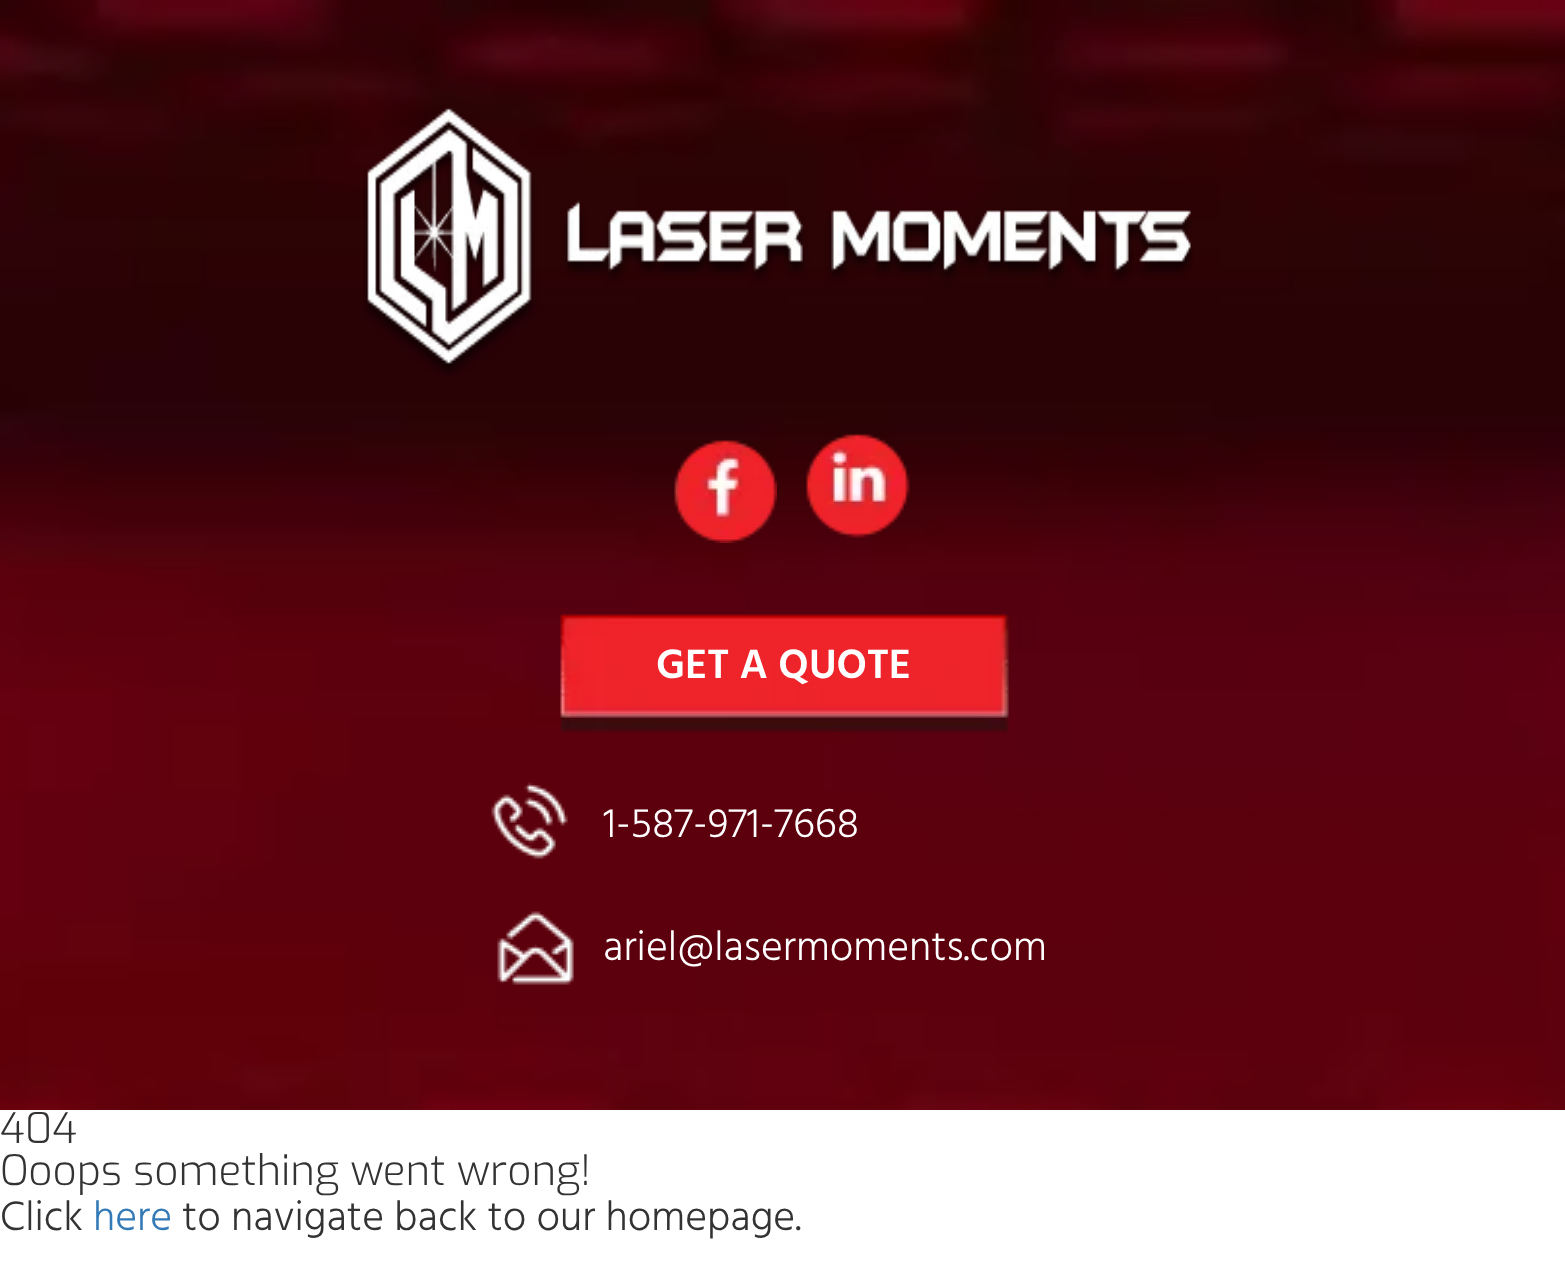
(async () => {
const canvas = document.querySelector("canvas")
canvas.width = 1565
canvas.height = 1275
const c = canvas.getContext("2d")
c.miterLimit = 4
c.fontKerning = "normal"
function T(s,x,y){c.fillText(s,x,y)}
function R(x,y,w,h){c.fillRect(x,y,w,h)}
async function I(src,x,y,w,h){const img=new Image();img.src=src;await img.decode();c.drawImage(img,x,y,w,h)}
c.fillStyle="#fff"
R(0,0,1565,1275)
await I("1.png",0,0,1565,1110)
await I("2.png",363,108,830,268)
await I("3.png",674,440,103,103)
await I("4.png",806,434,104,104)
await I("5.png",560,614,449,118)
c.font="600 42px Hind Guntur"
T("GET A QUOTE",656,678)
await I("6.png",491,782,77,77)
c.font="300 42px Hind Guntur"
T("1-587-971-7668",603,837)
await I("7.png",497,911,77,74)
T("ariel@lasermoments.com",603,960)
c.font="300 42px Exo"
c.fillStyle="#333"
T("404",0,1143)
T("Ooops something went wrong!",0,1185)
c.font="300 42px Hind Guntur"
T("Click",0,1230)
c.fillStyle="#337ab7"
T("here",93,1230)
c.fillStyle="#333"
T("to navigate back to our homepage.",182,1230)
})()
